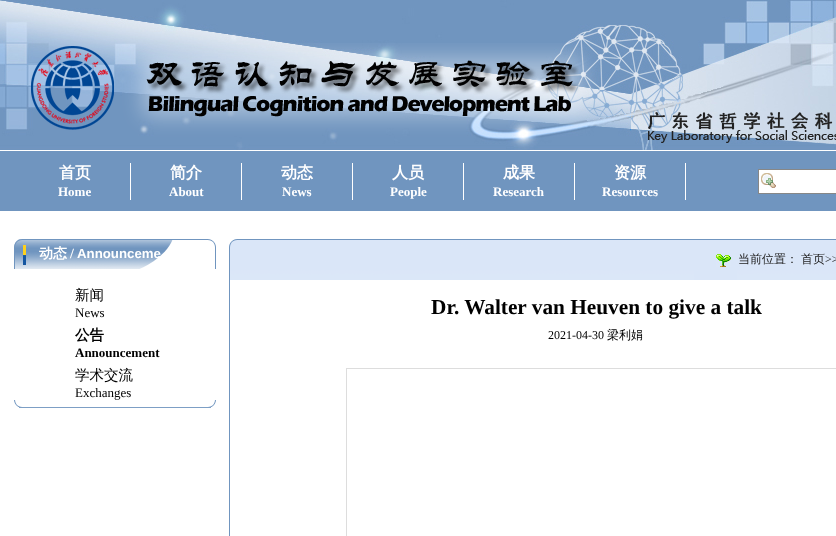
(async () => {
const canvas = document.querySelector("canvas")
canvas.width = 836
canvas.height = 536
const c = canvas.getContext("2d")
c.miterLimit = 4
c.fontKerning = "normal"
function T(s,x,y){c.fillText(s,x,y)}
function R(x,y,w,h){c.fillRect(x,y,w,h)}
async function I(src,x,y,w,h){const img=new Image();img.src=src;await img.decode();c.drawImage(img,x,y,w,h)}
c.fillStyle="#fff"
R(0,0,836,536)
await I("1.png",0,0,836,150)
await I("2.png",31,43,805,100)
c.fillStyle="#7095bf"
R(0,151,836,60)
c.fillStyle="#fff"
R(130,163,1,37)
c.font="bold 16px WenQuanYi Zen Hei"
T("首页",59,178)
c.font="bold 13px Liberation Serif"
T("Home",58,196)
R(241,163,1,37)
c.font="bold 16px WenQuanYi Zen Hei"
T("简介",170,178)
c.font="bold 13px Liberation Serif"
T("About",169,196)
R(352,163,1,37)
c.font="bold 16px WenQuanYi Zen Hei"
T("动态",281,178)
c.font="bold 13px Liberation Serif"
T("News",282,196)
R(463,163,1,37)
c.font="bold 16px WenQuanYi Zen Hei"
T("人员",392,178)
c.font="bold 13px Liberation Serif"
T("People",390,196)
R(574,163,1,37)
c.font="bold 16px WenQuanYi Zen Hei"
T("成果",503,178)
c.font="bold 13px Liberation Serif"
T("Research",493,196)
R(685,163,1,37)
c.font="bold 16px WenQuanYi Zen Hei"
T("资源",614,178)
c.font="bold 13px Liberation Serif"
T("Resources",602,196)
R(759,170,77,23)
await I("3.png",761,173,15,15)
c.strokeStyle="#878787"
c.strokeRect(758.5,169.5,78,24)
await I("4.png",14,239,202,30)
c.font="bold 14px WenQuanYi Zen Hei"
T("动态",39,258)
c.font="bold 14px Liberation Serif"
T("/",70,258)
c.font="bold 13.25px Liberation Sans"
T("Announceme",77,258)
c.font="500 14.5px WenQuanYi Zen Hei"
c.fillStyle="#000"
T("新闻",75,300)
c.font="13px Liberation Serif"
T("News",75,317)
c.font="bold 14.5px WenQuanYi Zen Hei"
T("公告",75,340)
c.font="bold 13px Liberation Serif"
T("Announcement",75,357)
c.font="500 14.5px WenQuanYi Zen Hei"
T("学术交流",75,380)
c.font="13px Liberation Serif"
T("Exchanges",75,397)
await I("5.png",14,400,202,8)
c.fillStyle="#7095bf"
R(229,280,1,256)
await I("6.png",229,239,607,41)
await I("7.png",716,254,15,13)
c.font="500 12px WenQuanYi Zen Hei"
c.fillStyle="#222"
T("当前位置：",738,263)
T("首页",801,263)
c.font="12px Liberation Serif"
T(">>",825,263)
c.font="bold 21.3px Liberation Serif"
c.fillStyle="#000"
T("Dr. Walter van Heuven to give a talk",431,314)
c.font="12px Liberation Serif"
T("2021-04-30",548,339)
c.font="500 12px WenQuanYi Zen Hei"
T("梁利娟",607,339)
c.strokeStyle="#ddd"
c.strokeRect(346.5,368.5,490,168)
})()
